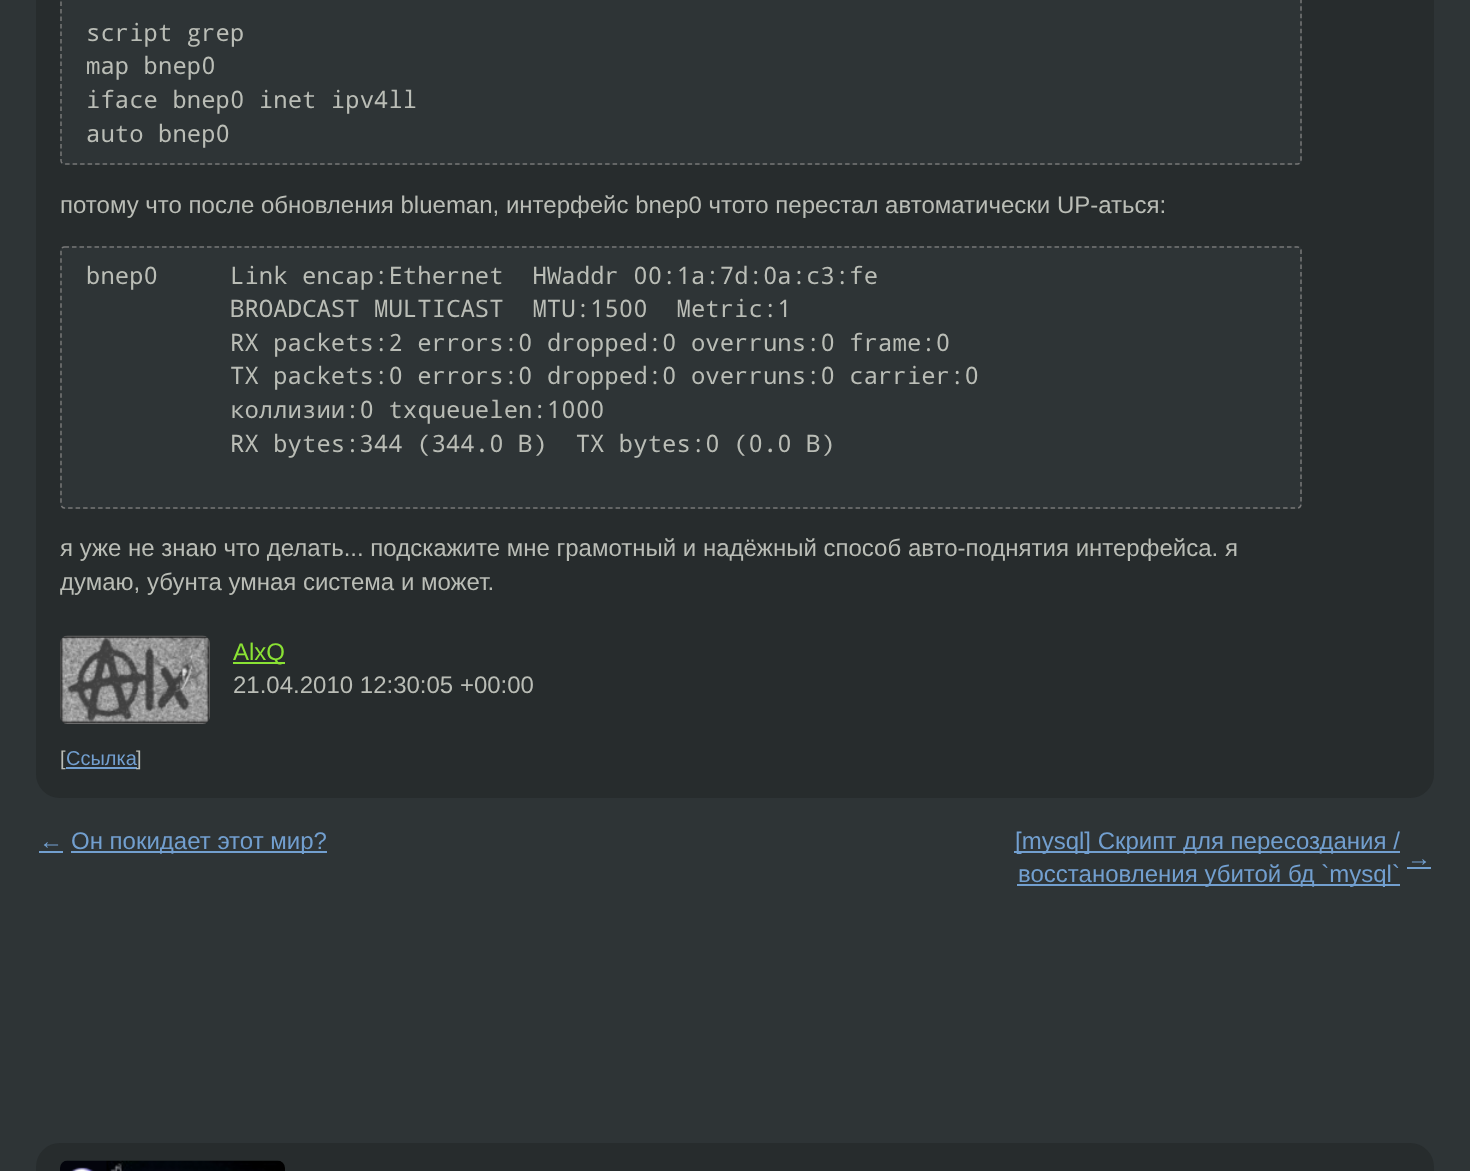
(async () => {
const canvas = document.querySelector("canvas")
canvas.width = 1470
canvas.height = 1171
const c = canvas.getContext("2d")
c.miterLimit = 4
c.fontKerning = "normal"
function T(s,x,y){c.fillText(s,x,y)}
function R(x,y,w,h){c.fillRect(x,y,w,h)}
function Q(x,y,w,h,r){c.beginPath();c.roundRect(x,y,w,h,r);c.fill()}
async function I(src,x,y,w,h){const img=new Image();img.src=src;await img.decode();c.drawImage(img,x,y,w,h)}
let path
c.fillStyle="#2e3436"
R(0,0,1470,1171)
c.fillStyle="#272c2d"
Q(36,-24,1398,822,24)
c.fillStyle="#2e3436"
Q(60,-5,1242,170,5)
path = new Path2D("M64.5-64h1233c2 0 3.5 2 3.5 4v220.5c0 2-1.5 3.5-3.5 3.5h-1233c-2 0-3.5-1.5-3.5-3.5v-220.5c0-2 1.5-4 3.5-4z")
c.strokeStyle="#777"
c.lineWidth=1.5
c.setLineDash([4.5,3])
c.stroke(path)
c.font="24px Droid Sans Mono"
c.fillStyle="#babdb6"
T("script grep",86,41)
T("map bnep0",86,74)
T("iface bnep0 inet ipv4ll",86,108)
T("auto bnep0",86,142)
c.font="24px Liberation Sans"
T("потому что после обновления blueman, интерфейс bnep0 чтото перестал автоматически UP-аться:",60,213)
c.fillStyle="#2e3436"
Q(60,246,1242,263,5)
path = new Path2D("M64.5 247h1233c2 0 3.5 1.5 3.5 3.5v253.5c0 2-1.5 4-3.5 4h-1233c-2 0-3.5-2-3.5-4v-253.5c0-2 1.5-3.5 3.5-3.5z")
c.stroke(path)
c.font="24px Droid Sans Mono"
c.fillStyle="#babdb6"
T("bnep0     Link encap:Ethernet  HWaddr 00:1a:7d:0a:c3:fe",86,284)
T("BROADCAST MULTICAST  MTU:1500  Metric:1",230,317)
T("RX packets:2 errors:0 dropped:0 overruns:0 frame:0",230,351)
T("TX packets:0 errors:0 dropped:0 overruns:0 carrier:0",230,384)
T("коллизии:0 txqueuelen:1000",230,418)
T("RX bytes:344 (344.0 B)  TX bytes:0 (0.0 B)",230,452)
c.font="24px Liberation Sans"
T("я уже не знаю что делать... подскажите мне грамотный и надёжный способ авто-поднятия интерфейса. я",60,556)
T("думаю, убунта умная система и может.",60,590)
await I("1.png",60,635,150,89)
c.fillStyle="#8ae234"
R(233,662,52,2)
T("AlxQ",233,660)
c.fillStyle="#babdb6"
T("21.04.2010 12:30:05 +00:00",233,693)
c.font="20px Liberation Sans"
T("[",60,765)
c.fillStyle="#729fcf"
R(66,767,71,2)
T("Ссылка",66,765)
c.fillStyle="#babdb6"
T("]",136,765)
c.font="24px Liberation Sans"
c.fillStyle="#729fcf"
T("←",39,849)
R(39,851,24,2)
R(71,851,256,2)
T("Он покидает этот мир?",71,849)
R(1014,851,386,2)
T("[mysql] Скрипт для пересоздания /",1015,849)
R(1017,884,383,2)
T("восстановления убитой бд `mysql`",1018,882)
T("→",1407,866)
R(1407,867,24,2)
c.fillStyle="#272c2d"
Q(36,1143,1398,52,24)
await I("2.png",60,1160,225,11)
})()
